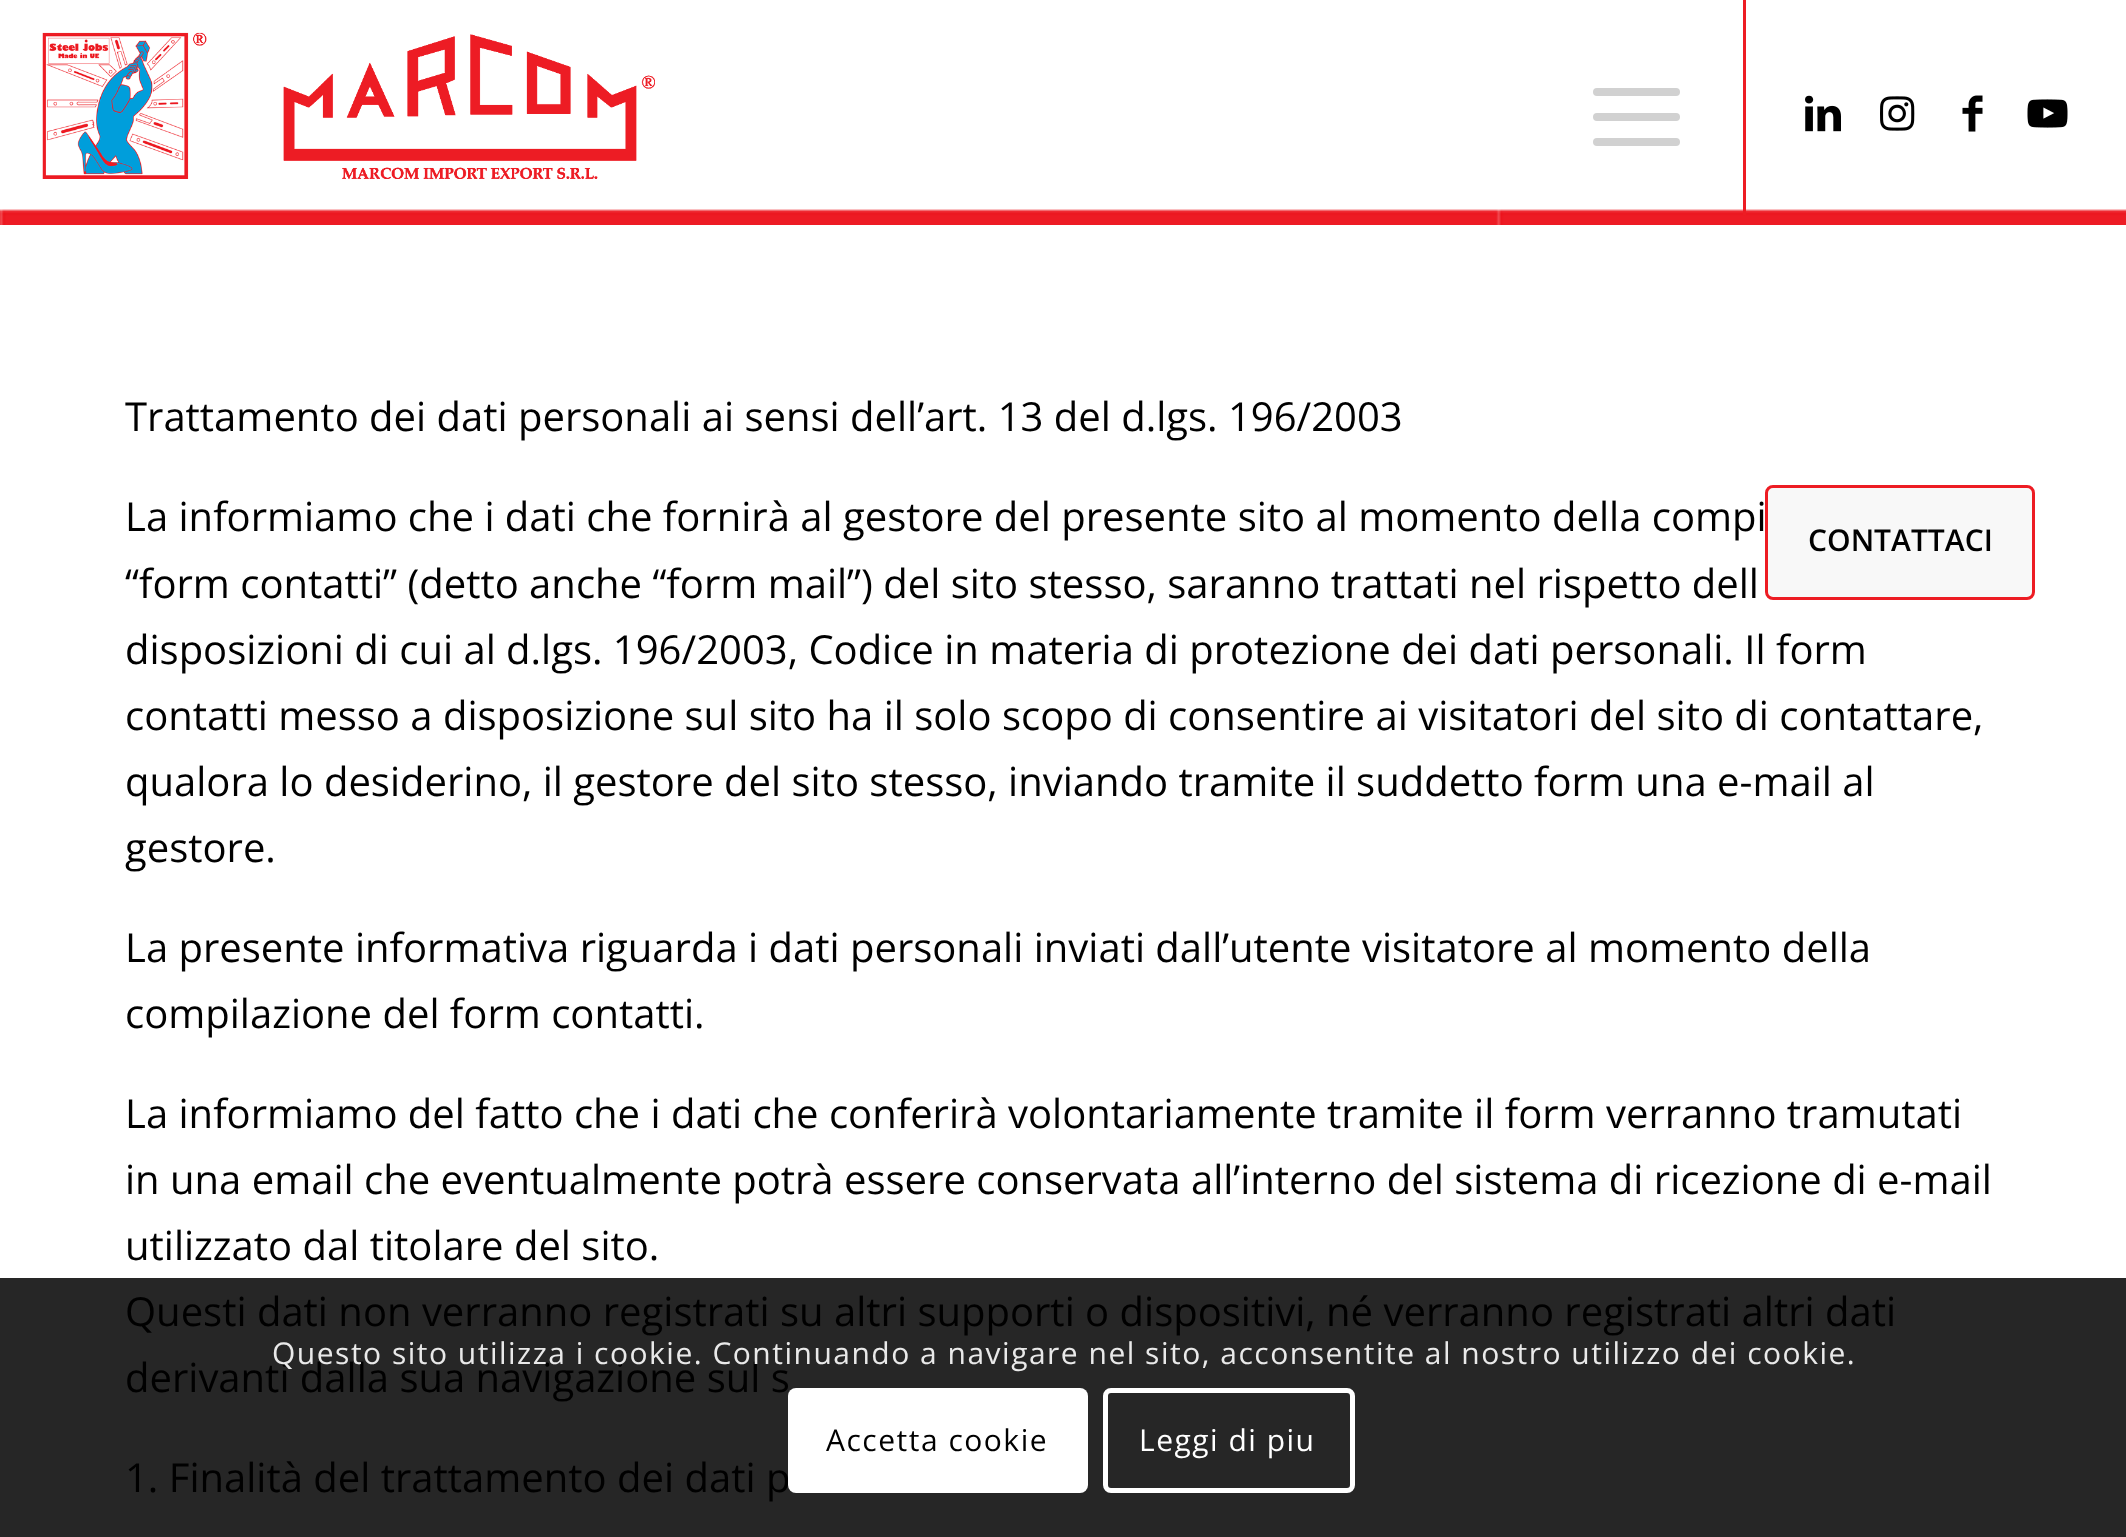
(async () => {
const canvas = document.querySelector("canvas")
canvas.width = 2126
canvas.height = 1537
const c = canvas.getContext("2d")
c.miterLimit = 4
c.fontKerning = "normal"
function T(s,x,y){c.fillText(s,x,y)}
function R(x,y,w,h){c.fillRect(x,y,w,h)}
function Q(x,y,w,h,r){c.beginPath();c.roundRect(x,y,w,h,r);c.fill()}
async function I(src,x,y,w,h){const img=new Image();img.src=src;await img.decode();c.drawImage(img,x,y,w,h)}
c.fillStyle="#fff"
R(0,0,2126,1537)
c.fillStyle="#262626"
R(0,1278,2126,259)
c.font="40px Open Sans"
c.fillStyle="#000"
T("Trattamento dei dati personali ai sensi dell’art. 13 del d.lgs. 196/2003",125,431)
T("La informiamo che i dati che fornirà al gestore del presente sito al momento della compi",125,531)
T("“form contatti” (detto anche “form mail”) del sito stesso, saranno trattati nel rispetto dell",125,598)
T("disposizioni di cui al d.lgs. 196/2003, Codice in materia di protezione dei dati personali. Il form",125,664)
T("contatti messo a disposizione sul sito ha il solo scopo di consentire ai visitatori del sito di contattare,",125,730)
T("qualora lo desiderino, il gestore del sito stesso, inviando tramite il suddetto form una e-mail al",125,796)
T("gestore.",125,862)
T("La presente informativa riguarda i dati personali inviati dall’utente visitatore al momento della",125,962)
T("compilazione del form contatti.",125,1028)
T("La informiamo del fatto che i dati che conferirà volontariamente tramite il form verranno tramutati",125,1128)
T("in una email che eventualmente potrà essere conservata all’interno del sistema di ricezione di e-mail",125,1194)
T("utilizzato dal titolare del sito.",125,1260)
T("Questi dati non verranno registrati su altri supporti o dispositivi, né verranno registrati altri dati",125,1326)
T("derivanti dalla sua navigazione sul s",125,1392)
T("1. Finalità del trattamento dei dati p",125,1492)
await I("1.png",0,209,2126,16)
await I("2.png",42,32,613,147)
c.fillStyle="#ed1c23"
R(1743,0,3,215)
c.fillStyle="#d1d1d1"
Q(1593,113,87,8,4)
Q(1593,88,87,8,4)
Q(1593,138,87,8,4)
await I("3.png",1805,95,36,37)
await I("4.png",1880,96,35,35)
await I("5.png",1962,95,21,37)
await I("6.png",2027,99,41,29)
c.fillStyle="#f8f8f8"
c.beginPath()
c.roundRect(1766.5,486.5,267,112,6.5)
c.fill()
c.strokeStyle="#ed1c23"
c.lineWidth=3
c.stroke()
c.font="600 30px Open Sans"
c.fillStyle="#000"
T("CONTATTACI",1808,551)
c.letterSpacing="1.5px"
c.font="30px Open Sans"
c.fillStyle="#e9e9e9"
T("Questo sito utilizza i cookie. Continuando a navigare nel sito, acconsentite al nostro utilizzo dei cookie.",272,1364)
c.fillStyle="#fff"
Q(788,1388,300,105,8)
c.fillStyle="#000"
T("Accetta cookie",826,1451)
c.beginPath()
c.roundRect(1105.5,1390.5,247,100,5.5)
c.strokeStyle="#fff"
c.lineWidth=5
c.stroke()
c.fillStyle="#fff"
T("Leggi di piu",1139,1451)
})()
